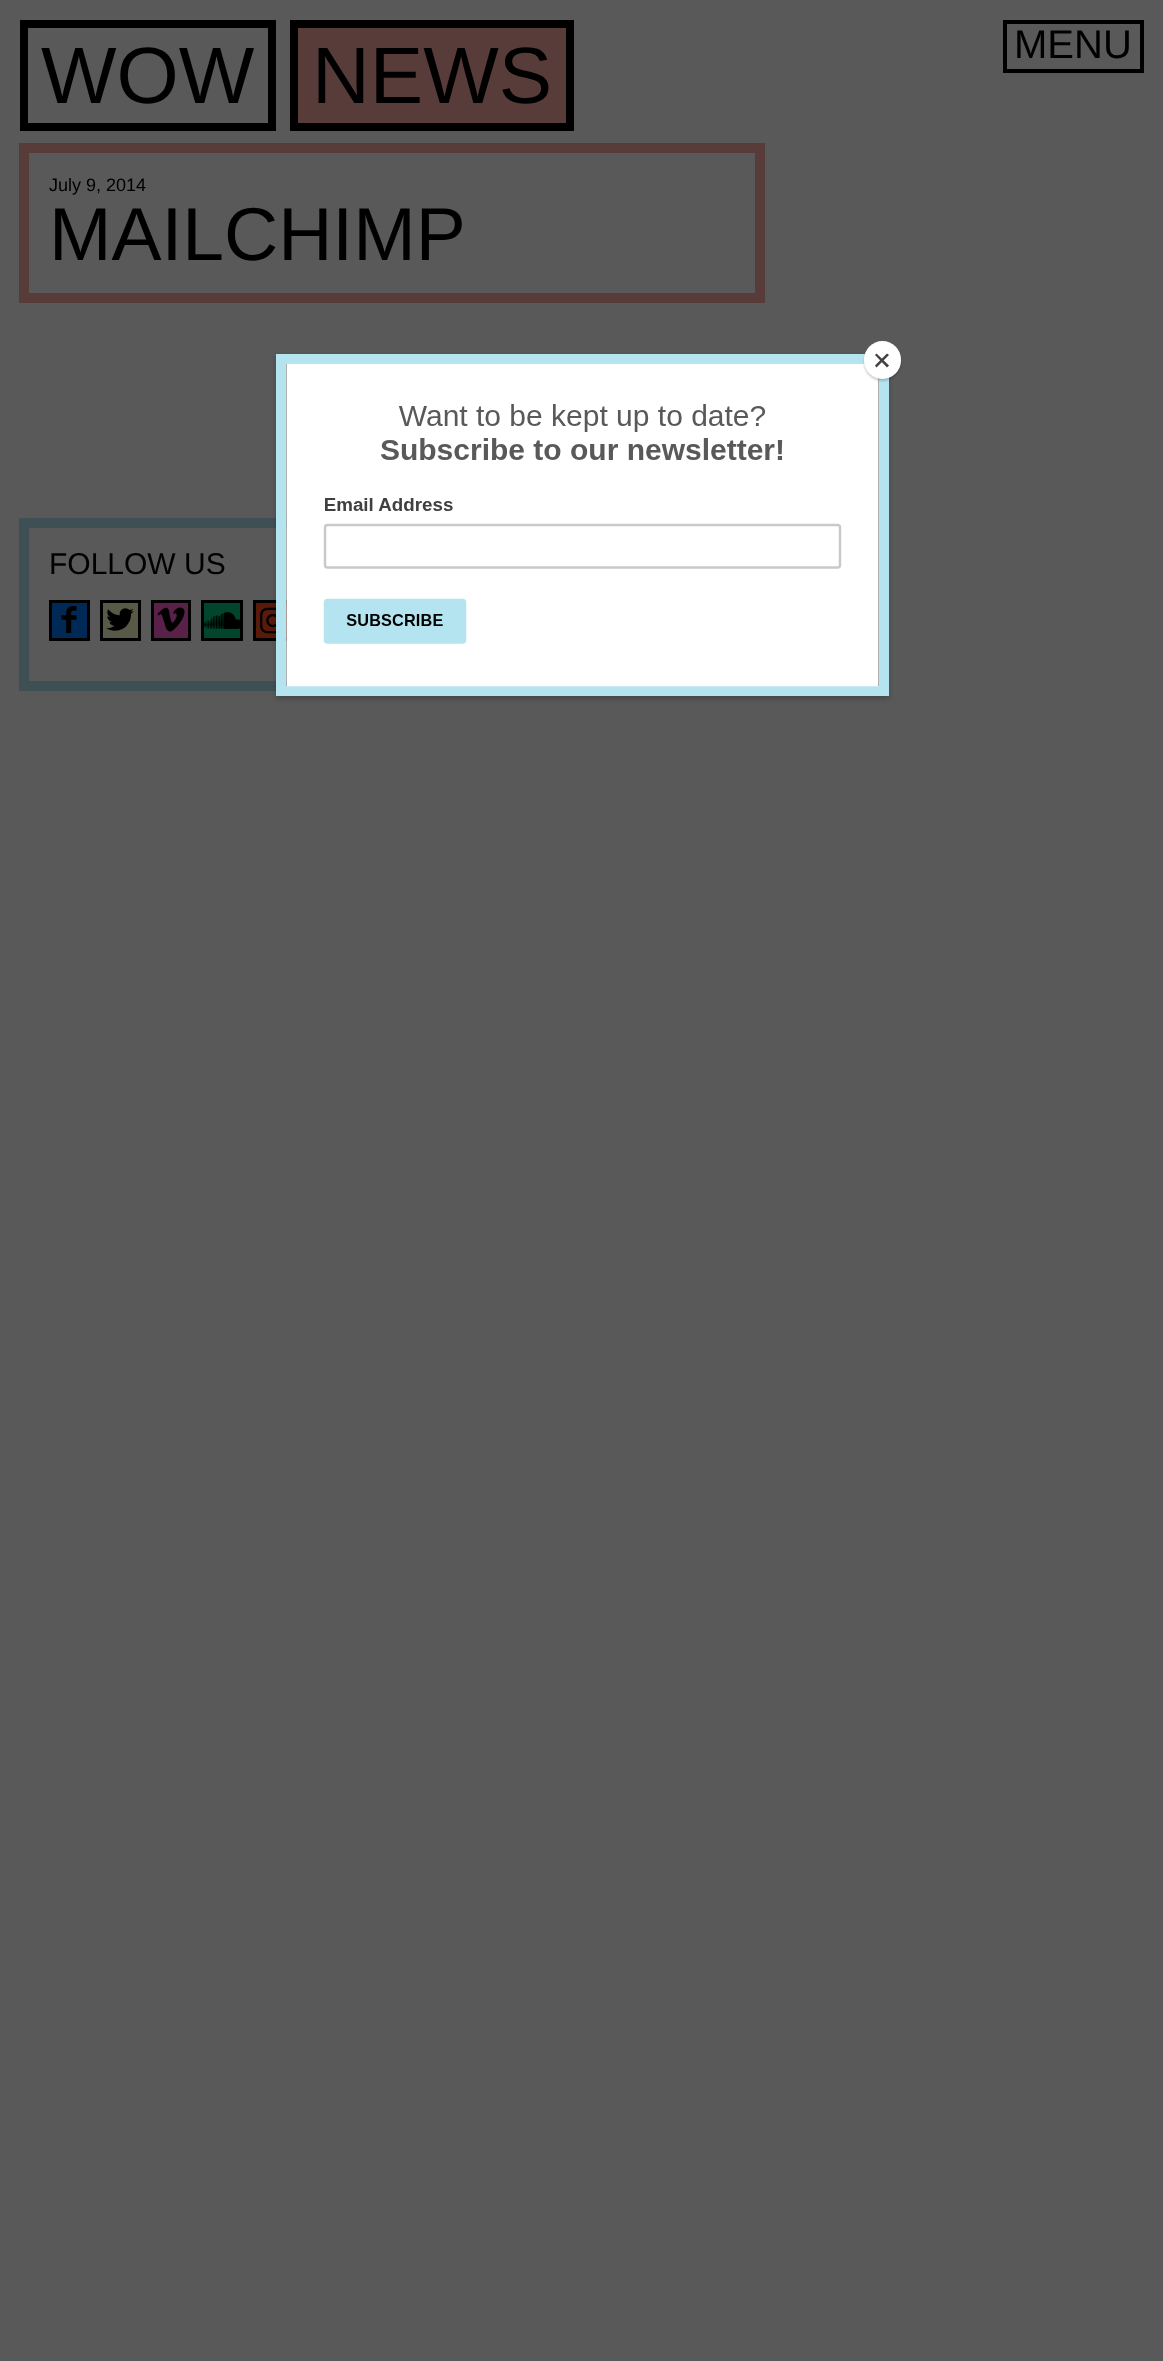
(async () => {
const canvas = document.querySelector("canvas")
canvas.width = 1163
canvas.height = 2361
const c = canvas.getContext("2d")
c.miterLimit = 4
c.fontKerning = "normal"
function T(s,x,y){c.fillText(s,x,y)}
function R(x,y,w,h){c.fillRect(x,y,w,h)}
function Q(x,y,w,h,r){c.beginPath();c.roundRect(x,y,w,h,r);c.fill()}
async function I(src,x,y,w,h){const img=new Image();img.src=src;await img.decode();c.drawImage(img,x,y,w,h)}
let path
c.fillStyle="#595959"
R(0,0,1163,2361)
c.strokeStyle="#000"
c.lineWidth=8
c.strokeRect(24,24,248,103)
c.font="80px Liberation Sans"
c.fillStyle="#000"
T("WOW",41,103)
c.fillStyle="#583c3a"
c.beginPath()
c.rect(294,24,276,103)
c.fill()
c.stroke()
c.fillStyle="#000"
T("NEWS",312,103)
c.lineWidth=4
c.strokeRect(1005,22,137,49)
c.font="40px Liberation Sans"
T("MENU",1014,58)
c.strokeStyle="#583c3a"
c.lineWidth=10
c.strokeRect(24,148,736,150)
c.font="18px Liberation Sans"
T("July 9, 2014",49,191)
c.font="75px Liberation Sans"
T("MAILCHIMP",49,260)
c.strokeStyle="#3f5054"
c.strokeRect(24,523,310,163)
c.font="30px Liberation Sans"
T("FOLLOW US",49,574)
c.fillStyle="#002a55"
c.beginPath()
c.rect(50.5,601.5,38,38)
c.fill()
c.strokeStyle="#000"
c.lineWidth=3
c.stroke()
c.font="30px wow"
c.fillStyle="#000"
T("🎭",54,633)
c.fillStyle="#595948"
c.beginPath()
c.rect(101.5,601.5,38,38)
c.fill()
c.stroke()
c.fillStyle="#000"
T("🐤",105,633)
c.fillStyle="#592148"
c.beginPath()
c.rect(152.5,601.5,37,38)
c.fill()
c.stroke()
c.fillStyle="#000"
T("🎥",156,633)
c.fillStyle="#00452c"
c.beginPath()
c.rect(202.5,601.5,39,38)
c.fill()
c.stroke()
await I("1.png",204,612,36,17)
c.fillStyle="#591a09"
R(256,603,31,35)
c.strokeRect(254.5,601.5,38,38)
await I("2.png",260,607,16,27)
c.fillStyle="#00000033"
c.filter="blur(2.5px)"
c.beginPath()
c.rect(276,356,613,343)
c.fill()
c.filter="none"
c.strokeStyle="#b4e4f0"
c.lineWidth=10
c.strokeRect(281,359,603,332)
await I("3.png",286,363,593,324)
c.filter="blur(1px)"
c.beginPath()
c.roundRect(864,344,37,37,18.5)
c.fill()
c.filter="none"
c.fillStyle="#fff"
Q(864,341,37,38,18.5)
c.fillStyle="#414141"
path = new Path2D("M887 353.5l2 1.5l-12.5 12.5l-1.5-2z")
c.fill(path)
path = new Path2D("M875 355l1.5-1.5l12.5 12l-2 2z")
c.fill(path)
})()
